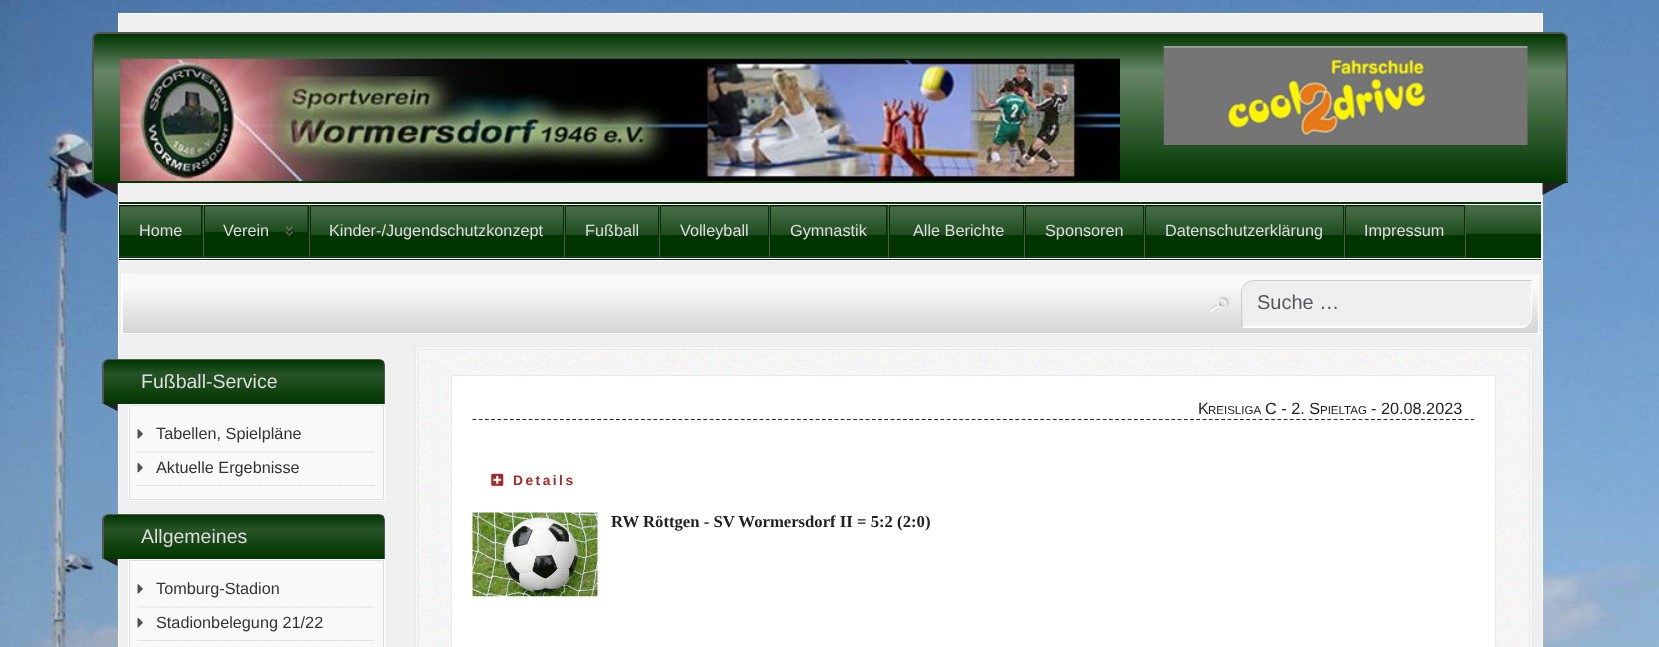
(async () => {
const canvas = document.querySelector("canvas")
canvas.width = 1659
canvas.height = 647
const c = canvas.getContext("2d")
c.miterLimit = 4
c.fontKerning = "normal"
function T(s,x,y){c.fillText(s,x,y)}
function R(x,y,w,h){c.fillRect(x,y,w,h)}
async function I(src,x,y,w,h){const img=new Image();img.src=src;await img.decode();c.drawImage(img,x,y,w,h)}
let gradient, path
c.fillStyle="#fff"
R(0,0,1659,647)
await I("1.png",0,0,1659,647)
c.fillStyle="#efefef"
c.beginPath()
c.rect(118.5,13.5,1424,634)
c.fill()
c.strokeStyle="#fff"
c.stroke()
c.fillStyle="#003500"
c.beginPath()
c.roundRect(93,33,1475,150,[6,6,0,0])
c.fill()
gradient = c.createLinearGradient(830,34,830,183)
gradient.addColorStop(0,"#003500")
gradient.addColorStop(.25,"#668666")
gradient.addColorStop(1,"#003500")
c.fillStyle = gradient
R(94,34,1472,146)
c.fillStyle="#555"
path = new Path2D("M99 32h1462c4 0 7 3 7 7v143h-1476v-143c0-4 3-7 7-7zm0 2h1462c3 0 5 2 5 5v143h-1472v-143c0-3 2-5 5-5z")
c.fill(path,"evenodd")
await I("2.png",120,58,1000,124)
await I("3.png",1163,46,365,99)
c.fillStyle="#222"
path = new Path2D("M94 182.5h23.5v12.5z")
c.fill(path)
path = new Path2D("M1542.5 182.5h23.5l-23.5 12.5z")
c.fill(path)
c.fillStyle="#003500"
R(119,202,1422,58)
await I("4.png",1466,205,75,29)
c.fillStyle="#fff"
R(119,201,1422,1)
R(119,204,1422,1)
R(119,258,1422,1)
R(119,260,1422,1)
c.fillStyle="#555"
R(203,205,1,53)
await I("5.png",120,206,83,29)
c.fillStyle="#000"
R(119,205,84,1)
c.fillStyle="#003500"
R(201,205,1,30)
c.fillStyle="#333"
R(119,256,84,1)
c.fillStyle="#003500"
R(119,205,1,53)
c.font="16.25px Liberation Sans"
c.fillStyle="#dedede"
T("Home",139,236)
c.fillStyle="#555"
R(309,205,1,53)
await I("6.png",203,205,105,33)
c.fillStyle="#000"
R(204,205,105,1)
c.fillStyle="#003500"
R(308,205,1,1)
c.fillStyle="#333"
R(204,256,105,1)
c.fillStyle="#003500"
R(204,205,1,53)
c.fillStyle="#dedede"
T("Verein",223,236)
c.fillStyle="#555"
R(564,205,1,53)
await I("7.png",311,206,252,29)
c.fillStyle="#000"
R(310,205,254,1)
c.fillStyle="#003500"
R(563,205,1,1)
c.fillStyle="#333"
R(310,256,254,1)
c.fillStyle="#003500"
R(310,205,1,53)
c.fillStyle="#dedede"
T("Kinder-/Jugendschutzkonzept",329,236)
c.fillStyle="#555"
R(659,205,1,53)
await I("8.png",566,206,92,29)
c.fillStyle="#000"
R(565,205,94,1)
c.fillStyle="#003500"
R(658,205,1,1)
c.fillStyle="#333"
R(565,256,94,1)
c.fillStyle="#003500"
R(565,205,1,53)
c.fillStyle="#dedede"
T("Fußball",585,236)
c.fillStyle="#555"
R(769,205,1,53)
await I("9.png",661,206,107,29)
c.fillStyle="#000"
R(660,205,109,1)
c.fillStyle="#003500"
R(768,205,1,1)
c.fillStyle="#333"
R(660,256,109,1)
c.fillStyle="#003500"
R(660,205,1,53)
c.fillStyle="#dedede"
T("Volleyball",680,236)
c.fillStyle="#555"
R(888,205,1,53)
await I("10.png",771,206,117,29)
c.fillStyle="#000"
R(770,205,118,1)
c.fillStyle="#003500"
R(886,205,1,30)
c.fillStyle="#333"
R(770,256,118,1)
c.fillStyle="#003500"
R(770,205,1,53)
c.fillStyle="#dedede"
T("Gymnastik",790,236)
c.fillStyle="#555"
R(1024,205,1,53)
await I("11.png",888,206,135,29)
c.fillStyle="#000"
R(889,205,135,1)
c.fillStyle="#003500"
R(1023,205,1,1)
c.fillStyle="#333"
R(889,256,135,1)
c.fillStyle="#003500"
R(889,205,1,53)
c.fillStyle="#dedede"
T("Alle Berichte",913,236)
c.fillStyle="#555"
R(1144,205,1,53)
await I("12.png",1026,206,117,29)
c.fillStyle="#000"
R(1025,205,119,1)
c.fillStyle="#003500"
R(1143,205,1,1)
c.fillStyle="#333"
R(1025,256,119,1)
c.fillStyle="#003500"
R(1025,205,1,53)
c.fillStyle="#dedede"
T("Sponsoren",1045,236)
c.fillStyle="#555"
R(1344,205,1,53)
await I("13.png",1146,206,197,29)
c.fillStyle="#000"
R(1145,205,199,1)
c.fillStyle="#003500"
R(1343,205,1,1)
c.fillStyle="#333"
R(1145,256,199,1)
c.fillStyle="#003500"
R(1145,205,1,53)
c.fillStyle="#dedede"
T("Datenschutzerklärung",1165,236)
c.fillStyle="#555"
R(1465,205,1,53)
await I("14.png",1346,206,118,29)
c.fillStyle="#000"
R(1345,205,120,1)
c.fillStyle="#003500"
R(1464,205,1,1)
c.fillStyle="#333"
R(1345,256,120,1)
c.fillStyle="#003500"
R(1345,205,1,53)
c.fillStyle="#dedede"
T("Impressum",1364,236)
c.fillStyle="#f9f9f9"
R(122,275,1,58)
gradient = c.createLinearGradient(830,275,830,333)
gradient.addColorStop(0,"#f9f9f9")
gradient.addColorStop(.2,"#f9f9f9")
gradient.addColorStop(1,"#d4d4d4")
c.fillStyle = gradient
R(123,275,1415,58)
c.strokeRect(121.5,274.5,1417,59)
await I("15.png",1210,296,20,16)
c.fillStyle="#efefef"
c.beginPath()
c.roundRect(1243,281,288,45,[11,0,11,0])
c.fill()
c.fillStyle="#ccc"
path = new Path2D("M1254 280c-3 0-7 1-9 4h1c2-2 5-3 8-3h277v1l1-2z")
c.fill(path)
c.fillStyle="#fff"
path = new Path2D("M1532 280v35c0 3-1 7-3 9l-1-1c2-2 3-5 3-8v-33z")
c.fill(path)
path = new Path2D("M1529 324c-2 2-3 3-6 4h-282l2-2h277c3 0 6-1 8-3z")
c.fill(path)
c.fillStyle="#ccc"
path = new Path2D("M1241 328v-38c1-2 2-5 4-6h1c-3 2-4 5-4 8v34h1z")
c.fill(path)
c.font="20px Liberation Sans"
c.fillStyle="#55585b"
T("Suche …",1257,309)
c.save()
c.beginPath()
c.roundRect(103,359,282,45,[6,6,0,0])
c.clip()
gradient = c.createLinearGradient(244,360,244,404)
gradient.addColorStop(0,"#003500")
gradient.addColorStop(.33,"#275427")
gradient.addColorStop(1,"#003500")
c.fillStyle = gradient
R(104,360,280,44)
c.restore()
c.fillStyle="#555"
path = new Path2D("M109 359h270c3 0 6 3 6 6v39h-283v-39c0-3 3-6 7-6zm0 1h270c3 0 5 2 5 5v39h-280v-39c0-3 2-5 5-5z")
c.fill(path,"evenodd")
c.font="19.5px Liberation Sans"
c.fillStyle="#dedede"
T("Fußball-Service",141,388)
c.fillStyle="#222"
path = new Path2D("M104 404h13.5v7z")
c.fill(path)
c.strokeRect(128.5,404.5,256,96)
c.fillStyle="#f9f9f9"
c.beginPath()
c.rect(129.5,405.5,254,94)
c.fill()
c.strokeStyle="#ddd"
c.stroke()
await I("16.png",137,429,6,10)
path = new Path2D("M137.5 452h237.5")
c.strokeStyle="#ccc"
c.lineWidth=1.2
c.setLineDash([1.25,1.25])
c.stroke(path)
c.font="16.25px Liberation Sans"
c.fillStyle="#333"
T("Tabellen, Spielpläne",156,439)
await I("17.png",137,463,6,10)
path = new Path2D("M137.5 485.5h237.5")
c.stroke(path)
T("Aktuelle Ergebnisse",156,473)
c.save()
c.beginPath()
c.roundRect(103,514,282,45,[6,6,0,0])
c.clip()
gradient = c.createLinearGradient(244,515,244,559)
gradient.addColorStop(0,"#003500")
gradient.addColorStop(.33,"#275427")
gradient.addColorStop(1,"#003500")
c.fillStyle = gradient
R(104,515,280,44)
c.restore()
c.fillStyle="#555"
path = new Path2D("M109 514h270c3 0 6 3 6 6v39h-283v-39c0-3 3-6 7-6zm0 1h270c3 0 5 2 5 5v39h-280v-39c0-3 2-5 5-5z")
c.fill(path,"evenodd")
c.font="19.5px Liberation Sans"
c.fillStyle="#dedede"
T("Allgemeines",141,543)
c.fillStyle="#222"
path = new Path2D("M104 559h13.5v7z")
c.fill(path)
c.strokeStyle="#fff"
c.lineWidth=1
c.setLineDash([])
c.strokeRect(128.5,559.5,256,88)
c.fillStyle="#f9f9f9"
c.beginPath()
c.rect(129.5,560.5,254,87)
c.fill()
c.strokeStyle="#ddd"
c.stroke()
await I("16.png",137,584,6,10)
path = new Path2D("M137.5 607h237.5")
c.strokeStyle="#ccc"
c.lineWidth=1.2
c.setLineDash([1.25,1.25])
c.stroke(path)
c.font="16.25px Liberation Sans"
c.fillStyle="#333"
T("Tomburg-Stadion",156,594)
await I("17.png",137,618,6,10)
path = new Path2D("M137.5 640.5h237.5")
c.stroke(path)
T("Stadionbelegung 21/22",156,628)
c.fillStyle="#f9f9f9"
R(416,347,1116,300)
await I("18.png",416,347,1116,300)
c.strokeStyle="#e9e9e9"
c.lineWidth=1
c.setLineDash([])
c.strokeRect(415.5,346.5,1117,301)
c.strokeRect(418.5,349.5,1111,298)
c.fillStyle="#fff"
c.beginPath()
c.rect(451.5,375.5,1044,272)
c.fill()
c.stroke()
path = new Path2D("M472.5 419.5h1001.5")
c.strokeStyle="#222"
c.lineWidth=1.2
c.setLineDash([3.75,2.49])
c.stroke(path)
c.fillStyle="#222"
T("K",1198,414)
c.font="11.5px Liberation Sans"
T("REISLIGA",1208,414)
c.font="16.25px Liberation Sans"
T("C - 2. S",1265,414)
c.font="11.5px Liberation Sans"
T("PIELTAG",1320,414)
c.font="16.25px Liberation Sans"
T("- 20.08.2023",1371,414)
await I("19.png",491,473,13,13)
c.letterSpacing="2.5px"
c.font="bold 13.75px Liberation Sans"
c.fillStyle="#a52a2a"
T("Details",513,485)
await I("20.png",472,512,126,85)
c.letterSpacing="0px"
c.font="bold 16.7px Liberation Serif"
c.fillStyle="#222"
T("RW Röttgen - SV Wormersdorf II = 5:2 (2:0)",611,527)
})()
